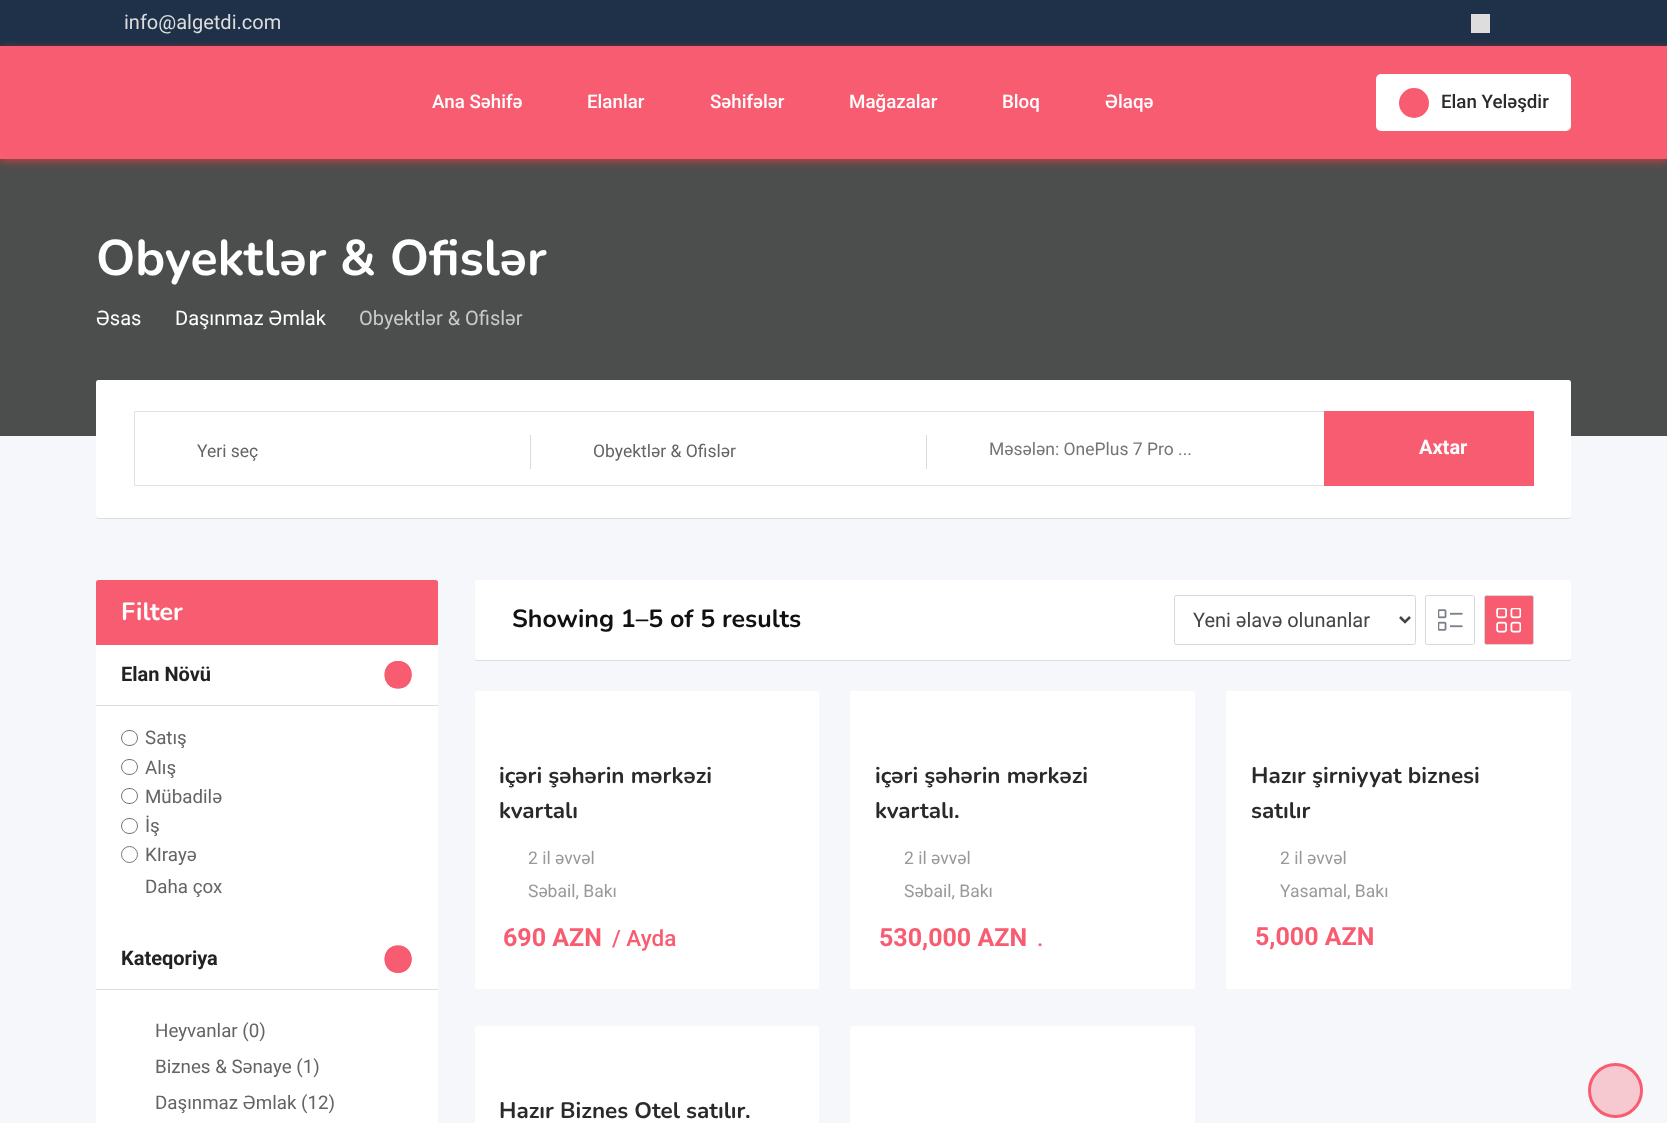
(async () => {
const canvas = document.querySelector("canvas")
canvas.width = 1667
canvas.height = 1123
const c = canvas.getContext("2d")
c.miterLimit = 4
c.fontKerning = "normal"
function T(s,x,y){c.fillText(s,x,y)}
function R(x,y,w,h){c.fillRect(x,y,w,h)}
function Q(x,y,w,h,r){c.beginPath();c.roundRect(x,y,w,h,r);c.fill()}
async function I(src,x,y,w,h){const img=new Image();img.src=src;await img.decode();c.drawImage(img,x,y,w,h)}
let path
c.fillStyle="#1e3148"
R(0,0,1667,1123)
c.font="20px Roboto"
c.fillStyle="#ddd"
T("info@algetdi.com",124,29)
R(1471,14,19,19)
c.fillStyle="#4c4d4d"
R(0,159,1667,277)
c.fillStyle="#e43d40cc"
c.filter="blur(5px)"
c.beginPath()
c.rect(0,49,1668,112)
c.fill()
c.filter="none"
c.fillStyle="#f85c70"
R(0,46,1667,113)
c.font="500 18.75px Roboto"
c.fillStyle="#fff"
T("Ana Səhifə",432,108)
T("Elanlar",587,108)
T("Səhifələr",710,108)
T("Mağazalar",849,108)
T("Bloq",1002,108)
T("Əlaqə",1105,108)
Q(1376,74,195,57,5)
c.fillStyle="#f85c70"
c.beginPath()
c.arc(1414,103,15,0,7)
c.fill()
c.fillStyle="#2a2a2a"
T("Elan Yeləşdir",1441,108)
c.fillStyle="#f5f7fa"
R(0,436,1667,687)
c.font="200 50px Nunito"
c.fillStyle="#fff"
T("Obyektlər & Ofislər",96,275)
c.font="20px Roboto"
T("Əsas",96,325)
T("Daşınmaz Əmlak",175,325)
c.fillStyle="#cacaca"
T("Obyektlər & Ofislər",359,325)
c.fillStyle="#0000001a"
c.filter="blur(0.5px)"
c.beginPath()
c.roundRect(96,381,1475,138,2.5)
c.fill()
c.filter="none"
c.fillStyle="#fff"
Q(96,380,1475,138,2.5)
c.fillStyle="#e1e1e1"
R(134,411,1,75)
R(135,411,1189,1)
R(135,485,1189,1)
c.font="17.5px Roboto"
c.fillStyle="#646464"
T("Yeri seç",197,457)
c.fillStyle="#d7dce3"
R(530,435,1,34)
c.fillStyle="#646464"
T("Obyektlər & Ofislər",593,457)
c.fillStyle="#d7dce3"
R(926,435,1,34)
c.fillStyle="#757575"
T("Məsələn: OnePlus 7 Pro ...",989,455)
c.fillStyle="#f85c70"
R(1324,411,210,75)
c.font="bold 20px Roboto"
c.fillStyle="#fff"
T("Axtar",1419,454)
c.fillStyle="#0000001a"
c.filter="blur(0.5px)"
c.beginPath()
c.roundRect(96,581,342,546,2.5)
c.fill()
c.filter="none"
c.fillStyle="#fff"
Q(96,580,342,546,2.5)
c.fillStyle="#f85c70"
c.beginPath()
c.roundRect(96,580,342,65,[2.5,2.5,0,0])
c.fill()
c.font="200 25px Nunito"
c.fillStyle="#fff"
T("Filter",121,620)
c.fillStyle="#ddd"
R(96,705,342,1)
c.font="bold 20px Roboto"
c.fillStyle="#222"
T("Elan Növü",121,681)
c.fillStyle="#f85c70"
path = new Path2D("M398 688.5c-18 0-18-27.5 0-27.5c18 0 18 27.5 0 27.5z")
c.fill(path)
path = new Path2D("M398 688c-17 0-17-26.5 0-26.5c17.5 0 17.5 26.5 0 26.5z")
c.strokeStyle="#f85c70"
c.lineWidth=1.2
c.stroke(path)
c.beginPath()
c.roundRect(121.5,730.5,16,15,7.5)
c.strokeStyle="#767676"
c.lineWidth=1
c.stroke()
c.font="18.75px Roboto"
c.fillStyle="#646464"
T("Satış",145,744)
c.beginPath()
c.roundRect(121.5,759.5,16,15,7.5)
c.stroke()
T("Alış",145,774)
c.beginPath()
c.roundRect(121.5,788.5,16,15,7.5)
c.stroke()
T("Mübadilə",145,803)
c.beginPath()
c.roundRect(121.5,818.5,16,15,7.5)
c.stroke()
T("İş",145,832)
c.beginPath()
c.arc(129.5,854.5,8,0,7)
c.stroke()
T("KIrayə",145,861)
T("Daha çox",145,893)
c.fillStyle="#ddd"
R(96,989,342,1)
c.font="bold 20px Roboto"
c.fillStyle="#222"
T("Kateqoriya",121,965)
c.fillStyle="#f85c70"
path = new Path2D("M398 973c-18 0-18-27.5 0-27.5c18 0 18 27.5 0 27.5z")
c.fill(path)
path = new Path2D("M398 972c-17 0-17-26 0-26c17.5 0 17.5 26 0 26z")
c.strokeStyle="#f85c70"
c.lineWidth=1.2
c.stroke(path)
c.font="18.75px Roboto"
c.fillStyle="#646464"
T("Heyvanlar (0)",155,1037)
T("Biznes & Sənaye (1)",155,1073)
T("Daşınmaz Əmlak (12)",155,1109)
c.fillStyle="#0000001a"
c.filter="blur(0.5px)"
c.beginPath()
c.roundRect(475,581,1096,80,2.5)
c.fill()
c.filter="none"
c.fillStyle="#fff"
Q(475,580,1096,80,2.5)
c.font="200 25px Nunito"
c.fillStyle="#111"
T("Showing 1–5 of 5 results",512,627)
c.beginPath()
c.roundRect(1174.5,595.5,241,49,2)
c.strokeStyle="#d7d7d7"
c.lineWidth=1
c.stroke()
path = new Path2D("M1400 617l5 5l5-5")
c.strokeStyle="#444"
c.lineWidth=2.5
c.stroke(path)
c.font="20px Roboto"
c.fillStyle="#444"
T("Yeni əlavə olunanlar",1193,627)
c.beginPath()
c.roundRect(1425.5,595.5,49,49,2)
c.strokeStyle="#d7d7d7"
c.lineWidth=1
c.stroke()
await I("1.png",1438,609,25,22)
c.fillStyle="#f85c70"
c.beginPath()
c.roundRect(1484.5,595.5,49,49,2)
c.fill()
c.stroke()
await I("2.png",1496,608,25,25)
c.fillStyle="#fff"
Q(475,691,344,298,2.5)
c.font="200 22.5px Nunito"
c.fillStyle="#2a2a2a"
T("içəri şəhərin mərkəzi",499,783)
T("kvartalı",499,818)
c.font="17.5px Roboto"
c.fillStyle="#999"
T("2 il əvvəl",528,864)
T("Səbail, Bakı",528,897)
c.font="bold 25px Roboto"
c.fillStyle="#f85c70"
T("690 AZN",503,946)
c.font="500 22.5px Roboto"
T("/ Ayda",612,946)
c.fillStyle="#fff"
Q(850,691,345,298,2.5)
c.font="200 22.5px Nunito"
c.fillStyle="#2a2a2a"
T("içəri şəhərin mərkəzi",875,783)
T("kvartalı.",875,818)
c.font="17.5px Roboto"
c.fillStyle="#999"
T("2 il əvvəl",904,864)
T("Səbail, Bakı",904,897)
c.font="bold 25px Roboto"
c.fillStyle="#f85c70"
T("530,000 AZN",879,946)
c.font="500 22.5px Roboto"
T(".",1037,946)
c.fillStyle="#fff"
Q(1226,691,345,298,2.5)
c.font="200 22.5px Nunito"
c.fillStyle="#2a2a2a"
T("Hazır şirniyyat biznesi",1251,783)
T("satılır",1251,818)
c.font="17.5px Roboto"
c.fillStyle="#999"
T("2 il əvvəl",1280,864)
T("Yasamal, Bakı",1280,897)
c.font="bold 25px Roboto"
c.fillStyle="#f85c70"
T("5,000 AZN",1255,945)
c.fillStyle="#fff"
Q(475,1026,344,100,2.5)
c.font="200 22.5px Nunito"
c.fillStyle="#2a2a2a"
T("Hazır Biznes Otel satılır.",499,1118)
c.fillStyle="#fff"
Q(850,1026,345,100,2.5)
c.fillStyle="#f6c9d1"
c.beginPath()
c.arc(1615.5,1090.5,26,0,7)
c.fill()
c.strokeStyle="#f85c70"
c.lineWidth=3
c.stroke()
})()
